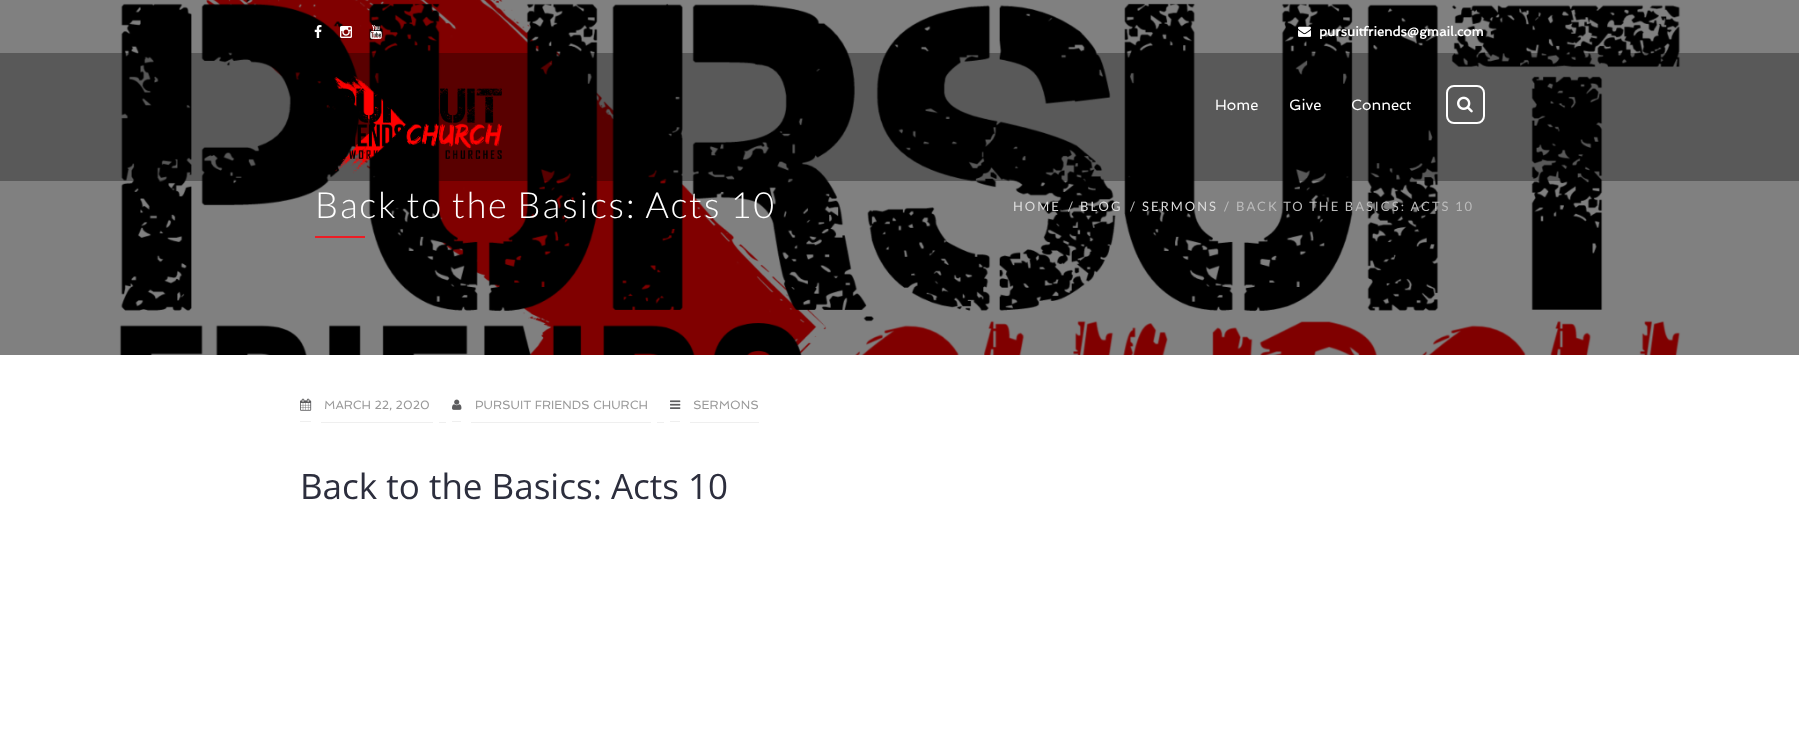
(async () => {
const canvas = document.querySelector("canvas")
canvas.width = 1799
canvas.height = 732
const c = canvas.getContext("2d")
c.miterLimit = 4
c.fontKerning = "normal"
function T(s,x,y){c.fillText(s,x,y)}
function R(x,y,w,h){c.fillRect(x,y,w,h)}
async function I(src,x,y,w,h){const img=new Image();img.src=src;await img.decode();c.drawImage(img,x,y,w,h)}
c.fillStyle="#fff"
R(0,0,1799,732)
c.fillStyle="#808080"
R(0,0,1799,355)
await I("7.png",119,0,1562,355)
await I("1.png",314,25,8,13)
await I("2.png",340,26,12,12)
await I("3.png",370,25,12,14)
await I("4.png",1298,26,13,11)
c.font="bold 13px Spinnaker"
c.fillStyle="#fff"
T("pursuitfriends@gmail.com",1319,36)
c.fillStyle="#0000004d"
R(0,53,1799,128)
await I("5.png",328,75,174,99)
c.font="15px Spinnaker"
c.fillStyle="#fff"
T("Home",1215,110)
T("Give",1289,110)
T("Connect",1351,110)
c.beginPath()
c.roundRect(1447,86,37,37,7)
c.strokeStyle="#fff"
c.lineWidth=2
c.stroke()
await I("6.png",1457,96,16,17)
c.letterSpacing="2px"
c.font="300 36px Lato"
T("Back to the Basics: Acts 10",315,218)
c.fillStyle="#ed1c24"
R(315,236,50,2)
c.font="13px Lato"
c.fillStyle="#dbdbdb"
T("HOME",1013,211)
c.fillStyle="#bbb"
T("/",1068,211)
c.fillStyle="#dbdbdb"
T("BLOG",1080,211)
c.fillStyle="#bbb"
T("/",1130,211)
c.fillStyle="#dbdbdb"
T("SERMONS",1142,211)
c.fillStyle="#bbb"
T("/",1224,211)
T("BACK TO THE BASICS: ACTS 10",1236,211)
c.fillStyle="#efefef"
R(300,421,11,1)
R(321,422,112,1)
R(439,422,7,1)
await I("8.png",300,398,12,13)
c.letterSpacing="0px"
c.font="12px Spinnaker"
c.fillStyle="#999"
T("MARCH 22, 2020",324,409)
c.fillStyle="#efefef"
R(452,421,9,1)
R(471,422,180,1)
R(657,422,7,1)
await I("9.png",452,399,10,11)
c.fillStyle="#999"
T("PURSUIT FRIENDS CHURCH",475,409)
c.fillStyle="#efefef"
R(670,421,10,1)
R(690,422,69,1)
await I("10.png",670,400,11,9)
c.fillStyle="#999"
T("SERMONS",693,409)
c.font="35px Open Sans"
c.fillStyle="#2c2e3d"
T("Back to the Basics: Acts 10",300,499)
})()
